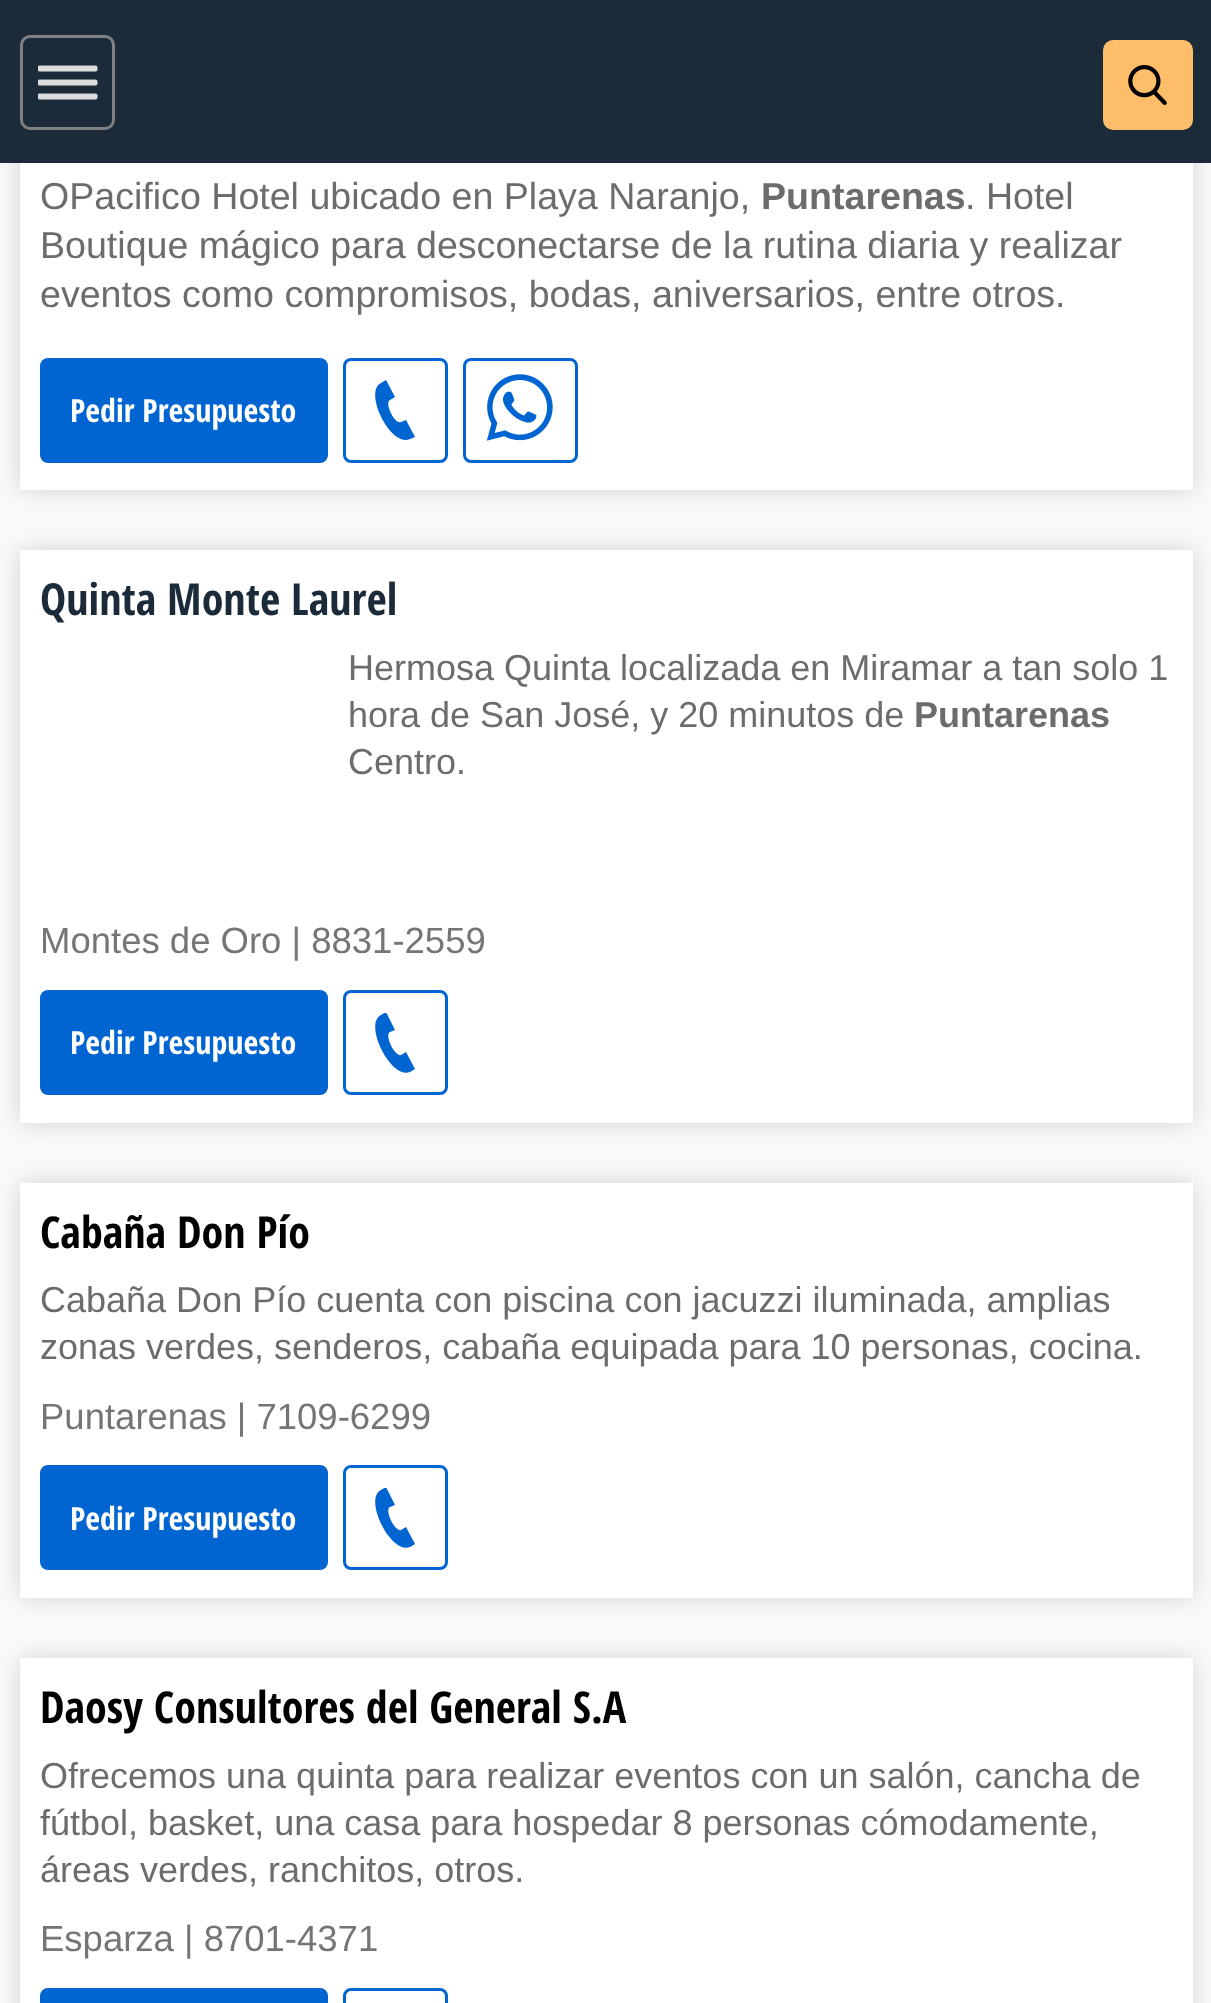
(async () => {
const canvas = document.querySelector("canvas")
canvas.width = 1211
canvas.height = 2003
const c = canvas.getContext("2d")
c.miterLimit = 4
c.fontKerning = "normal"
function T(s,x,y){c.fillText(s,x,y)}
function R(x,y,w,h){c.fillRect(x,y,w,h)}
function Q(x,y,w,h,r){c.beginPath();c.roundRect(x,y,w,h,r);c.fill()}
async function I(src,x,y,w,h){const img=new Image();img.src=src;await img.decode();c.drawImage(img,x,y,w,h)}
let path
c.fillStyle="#fafafa"
R(0,0,1211,2003)
c.fillStyle="#00000029"
c.filter="blur(12.5px)"
c.beginPath()
c.rect(20,-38,1173,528)
c.fill()
c.filter="none"
c.fillStyle="#1c2b39"
R(0,0,1211,163)
c.beginPath()
c.roundRect(21.5,36.5,92,92,8.5)
c.strokeStyle="#808080"
c.lineWidth=3
c.stroke()
await I("1.png",38,65,60,35)
c.fillStyle="#febd69"
Q(1103,40,90,90,10)
await I("2.png",1128,65,39,40)
c.fillStyle="#fff"
R(20,163,1173,327)
c.font="37.6px Liberation Sans"
c.fillStyle="#6c6c6c"
T("OPacifico Hotel ubicado en Playa Naranjo,",40,209)
c.font="bold 37.6px Liberation Sans"
T("Puntarenas",761,209)
c.font="37.6px Liberation Sans"
T(". Hotel",965,209)
T("Boutique mágico para desconectarse de la rutina diaria y realizar",40,258)
T("eventos como compromisos, bodas, aniversarios, entre otros.",40,307)
c.fillStyle="#0064d1"
c.beginPath()
c.roundRect(41.5,359.5,285,102,6.5)
c.fill()
c.strokeStyle="#0064d1"
c.stroke()
c.font="bold 32px Open Sans Condensed"
c.fillStyle="#fff"
T("Pedir Presupuesto",70,422)
c.beginPath()
c.roundRect(344.5,359.5,102,102,6.5)
c.stroke()
c.fillStyle="#0064d1"
path = new Path2D("M415 437l-9-17l-5 2c-6 3-17-19-11-22l5-3l-9-17l-5 3c-18 9 10 65 29 56z")
c.fill(path)
c.beginPath()
c.roundRect(464.5,359.5,112,102,6.5)
c.stroke()
await I("3.png",486,374,67,67)
c.fillStyle="#00000029"
c.filter="blur(12.5px)"
c.beginPath()
c.rect(20,550,1173,573)
c.fill()
c.filter="none"
c.fillStyle="#fff"
R(20,550,1173,573)
c.font="bold 44px Open Sans Condensed"
c.fillStyle="#1c2b39"
T("Quinta Monte Laurel",40,615)
c.font="36px Liberation Sans"
c.fillStyle="#6c6c6c"
T("Hermosa Quinta localizada en Miramar a tan solo 1",348,680)
T("hora de San José, y 20 minutos de",348,727)
c.font="bold 36px Liberation Sans"
T("Puntarenas",914,727)
c.font="36px Liberation Sans"
T("Centro.",348,774)
c.font="36.5px Liberation Sans"
c.fillStyle="#757575"
T("Montes de Oro | 8831-2559",40,953)
c.fillStyle="#0064d1"
c.beginPath()
c.roundRect(41.5,991.5,285,102,6.5)
c.fill()
c.stroke()
c.font="bold 32px Open Sans Condensed"
c.fillStyle="#fff"
T("Pedir Presupuesto",70,1054)
c.beginPath()
c.roundRect(344.5,991.5,102,102,6.5)
c.stroke()
c.save()
c.beginPath()
c.rect(365,1013,60,60)
c.clip()
c.fillStyle="#0064d1"
path = new Path2D("M415 1069l-9-17l-5 3c-6 2-17-20-11-23l5-2l-9-18l-5 3c-18 9 10 65 29 57z")
c.fill(path)
c.restore()
c.fillStyle="#00000029"
c.filter="blur(12.5px)"
c.beginPath()
c.rect(20,1183,1173,415)
c.fill()
c.filter="none"
c.fillStyle="#fff"
R(20,1183,1173,415)
c.font="bold 44px Open Sans Condensed"
c.fillStyle="#000"
T("Cabaña Don Pío",40,1248)
c.font="36px Liberation Sans"
c.fillStyle="#6c6c6c"
T("Cabaña Don Pío cuenta con piscina con jacuzzi iluminada, amplias",40,1312)
T("zonas verdes, senderos, cabaña equipada para 10 personas, cocina.",40,1359)
c.font="36.5px Liberation Sans"
c.fillStyle="#757575"
T("Puntarenas | 7109-6299",40,1429)
c.fillStyle="#0064d1"
c.beginPath()
c.roundRect(41.5,1466.5,285,102,6.5)
c.fill()
c.stroke()
c.font="bold 32px Open Sans Condensed"
c.fillStyle="#fff"
T("Pedir Presupuesto",70,1530)
c.beginPath()
c.roundRect(344.5,1466.5,102,102,6.5)
c.stroke()
c.save()
c.beginPath()
c.rect(365,1488,60,60)
c.clip()
c.fillStyle="#0064d1"
path = new Path2D("M415 1544l-9-17l-5 3c-6 2-17-20-11-23l5-2l-9-18l-5 3c-18 9 10 65 29 57z")
c.fill(path)
c.restore()
c.fillStyle="#00000029"
c.filter="blur(12.5px)"
c.beginPath()
c.rect(20,1658,1173,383)
c.fill()
c.filter="none"
c.fillStyle="#fff"
R(20,1658,1173,345)
c.font="bold 44px Open Sans Condensed"
c.fillStyle="#000"
T("Daosy Consultores del General S.A",40,1723)
c.font="36px Liberation Sans"
c.fillStyle="#6c6c6c"
T("Ofrecemos una quinta para realizar eventos con un salón, cancha de",40,1788)
T("fútbol, basket, una casa para hospedar 8 personas cómodamente,",40,1835)
T("áreas verdes, ranchitos, otros.",40,1882)
c.font="36.5px Liberation Sans"
c.fillStyle="#757575"
T("Esparza | 8701-4371",40,1951)
c.fillStyle="#0064d1"
c.beginPath()
c.roundRect(41.5,1989.5,285,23,6.5)
c.fill()
c.stroke()
c.beginPath()
c.roundRect(344.5,1989.5,102,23,6.5)
c.stroke()
})()
